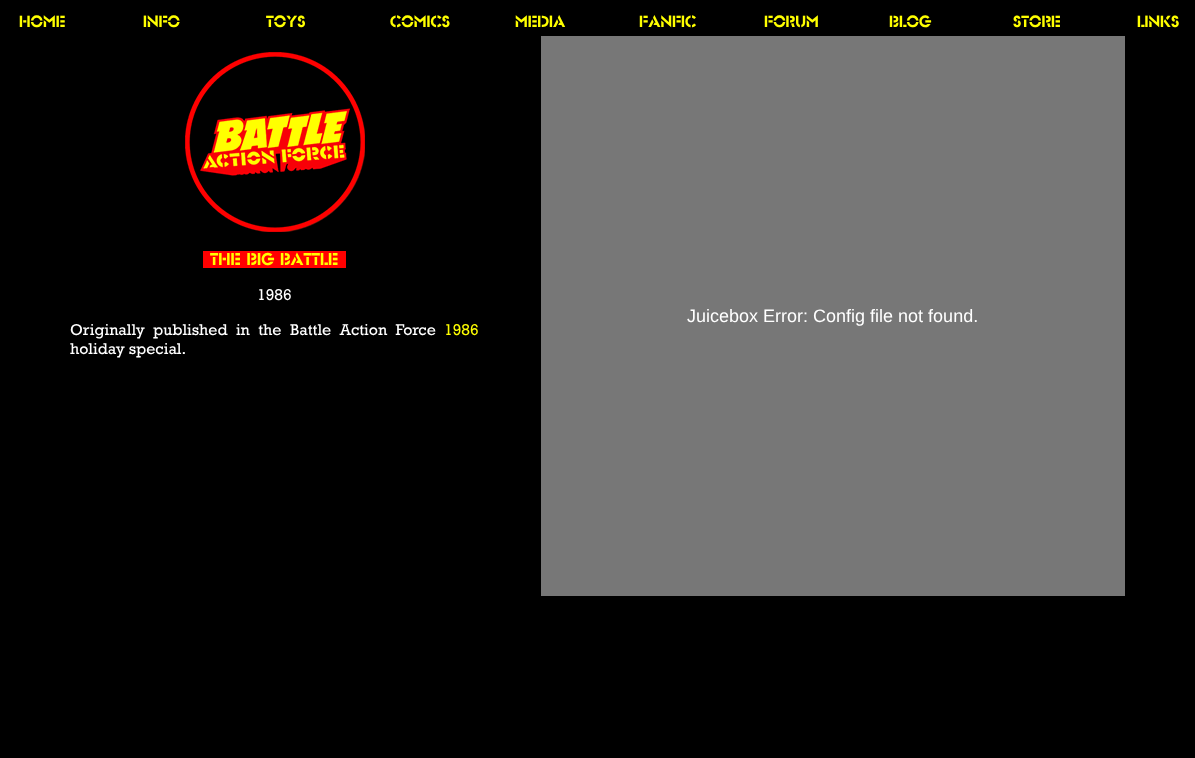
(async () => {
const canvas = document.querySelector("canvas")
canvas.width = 1195
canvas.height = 758
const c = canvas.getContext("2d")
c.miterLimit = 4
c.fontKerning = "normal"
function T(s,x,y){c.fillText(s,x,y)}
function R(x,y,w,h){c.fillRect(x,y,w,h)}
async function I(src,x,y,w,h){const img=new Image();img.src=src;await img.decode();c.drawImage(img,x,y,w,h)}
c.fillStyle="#000"
R(0,0,1195,758)
c.font="100 17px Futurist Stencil"
c.fillStyle="#ff0"
T("HOME",19,27)
T("INFO",143,27)
T("TOYS",266,27)
T("COMICS",390,27)
T("MEDIA",515,27)
T("FANFIC",639,27)
T("FORUM",764,27)
T("BLOG",889,27)
T("STORE",1013,27)
T("LINKS",1137,27)
await I("1.png",185,52,180,180)
c.fillStyle="#f00"
R(203,251,143,17)
c.font="100 18px Futurist Stencil"
c.fillStyle="#ff0"
T("THE BIG BATTLE",210,265)
c.font="16px Rockwell"
c.fillStyle="#fff"
T("1986",257,300)
c.wordSpacing="4.5px"
T("Originally published in the Battle Action Force",70,335)
c.wordSpacing="0px"
c.fillStyle="#ff0"
T("1986",444,335)
c.fillStyle="#fff"
T("holiday special.",70,354)
c.fillStyle="#777"
R(541,36,584,560)
c.font="18px Liberation Sans"
c.fillStyle="#fff"
T("Juicebox Error: Config file not found.",687,322)
})()
